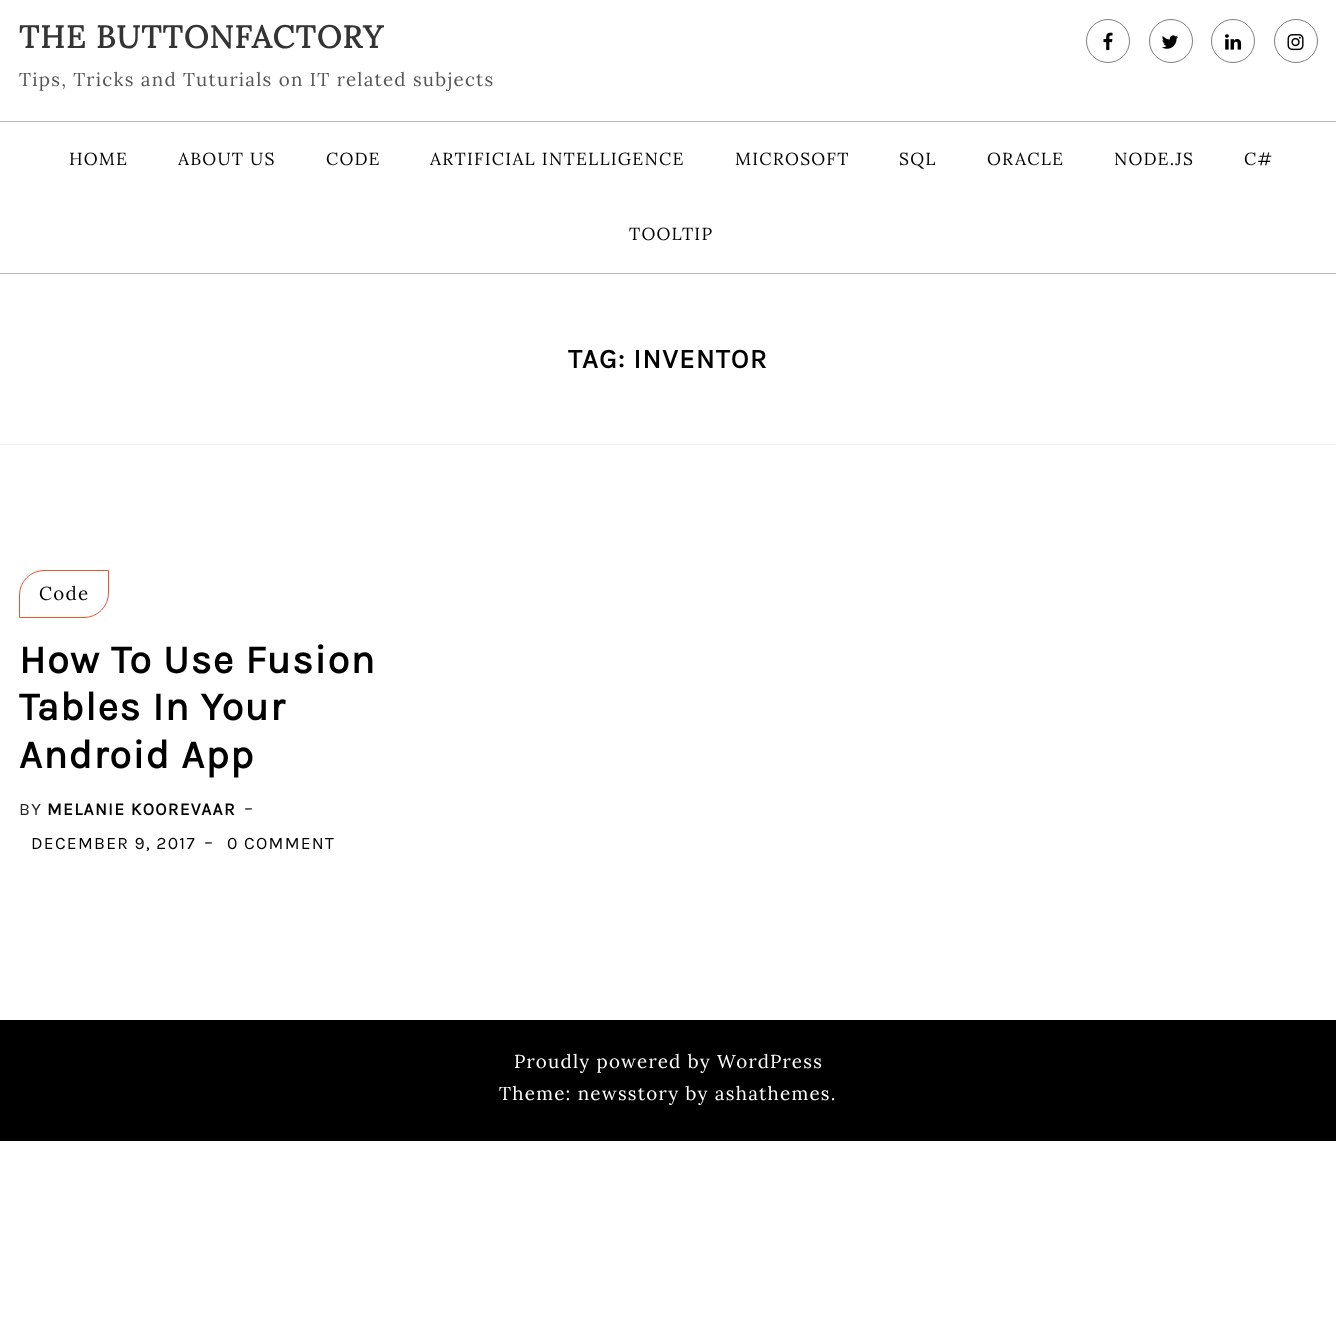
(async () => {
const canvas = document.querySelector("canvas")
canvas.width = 1336
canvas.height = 1322
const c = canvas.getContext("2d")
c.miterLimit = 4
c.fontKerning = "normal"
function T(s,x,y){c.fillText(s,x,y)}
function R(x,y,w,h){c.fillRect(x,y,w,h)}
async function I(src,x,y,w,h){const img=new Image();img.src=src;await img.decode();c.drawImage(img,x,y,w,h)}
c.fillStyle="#fff"
R(0,0,1336,1322)
c.letterSpacing="1.25px"
c.font="bold 31.25px Lora"
c.fillStyle="#343434"
T("THE BUTTONFACTORY",19,48)
c.font="18.75px Lora"
c.fillStyle="#555"
T("Tips, Tricks and Tuturials on IT related subjects",19,86)
c.beginPath()
c.arc(1108,41,21.5,0,7)
c.strokeStyle="#847e7e"
c.stroke()
await I("1.png",1103,32,10,19)
c.beginPath()
c.arc(1171,41,21.5,0,7)
c.stroke()
await I("2.png",1162,35,16,14)
c.beginPath()
c.arc(1233,41,21.5,0,7)
c.stroke()
await I("3.png",1225,34,17,16)
c.beginPath()
c.arc(1296,41,21.5,0,7)
c.stroke()
await I("4.png",1287,34,17,17)
c.fillStyle="#b7b7b7"
R(0,121,1336,1)
R(0,273,1336,1)
c.font="17.5px Lora"
c.fillStyle="#000"
T("HOME",69,165)
T("ABOUT US",178,165)
T("CODE",326,165)
T("ARTIFICIAL INTELLIGENCE",430,165)
T("MICROSOFT",735,165)
T("SQL",899,165)
T("ORACLE",987,165)
T("NODE.JS",1114,165)
T("C#",1244,165)
T("TOOLTIP",629,240)
c.fillStyle="#f2f2f2"
R(0,444,1336,1)
c.font="bold 27.5px Karla"
c.fillStyle="#000"
T("TAG: INVENTOR",568,368)
c.beginPath()
c.roundRect(19.5,570.5,89,47,[24.5,0,24.5,0])
c.strokeStyle="#ea552b"
c.stroke()
c.font="18.75px Lora"
T("Code",39,600)
c.font="bold 40px Karla"
T("How To Use Fusion",19,673)
T("Tables In Your",19,720)
T("Android App",19,768)
c.font="17.5px Karla"
c.fillStyle="#252525"
T("BY",19,815)
c.font="bold 17.5px Karla"
c.fillStyle="#000"
T("MELANIE KOOREVAAR",47,815)
c.font="18.75px Lora"
c.fillStyle="#252525"
T("-",244,815)
c.font="17.5px Karla"
c.fillStyle="#000"
T("DECEMBER 9, 2017",31,849)
c.font="18.75px Lora"
c.fillStyle="#252525"
T("-",204,849)
c.font="17.5px Karla"
c.fillStyle="#000"
T("0 COMMENT",227,849)
R(0,1020,1336,121)
c.font="18.75px Lora"
c.fillStyle="#fff"
T("Proudly powered by WordPress",514,1068)
T("Theme: newsstory by ashathemes.",499,1100)
})()
